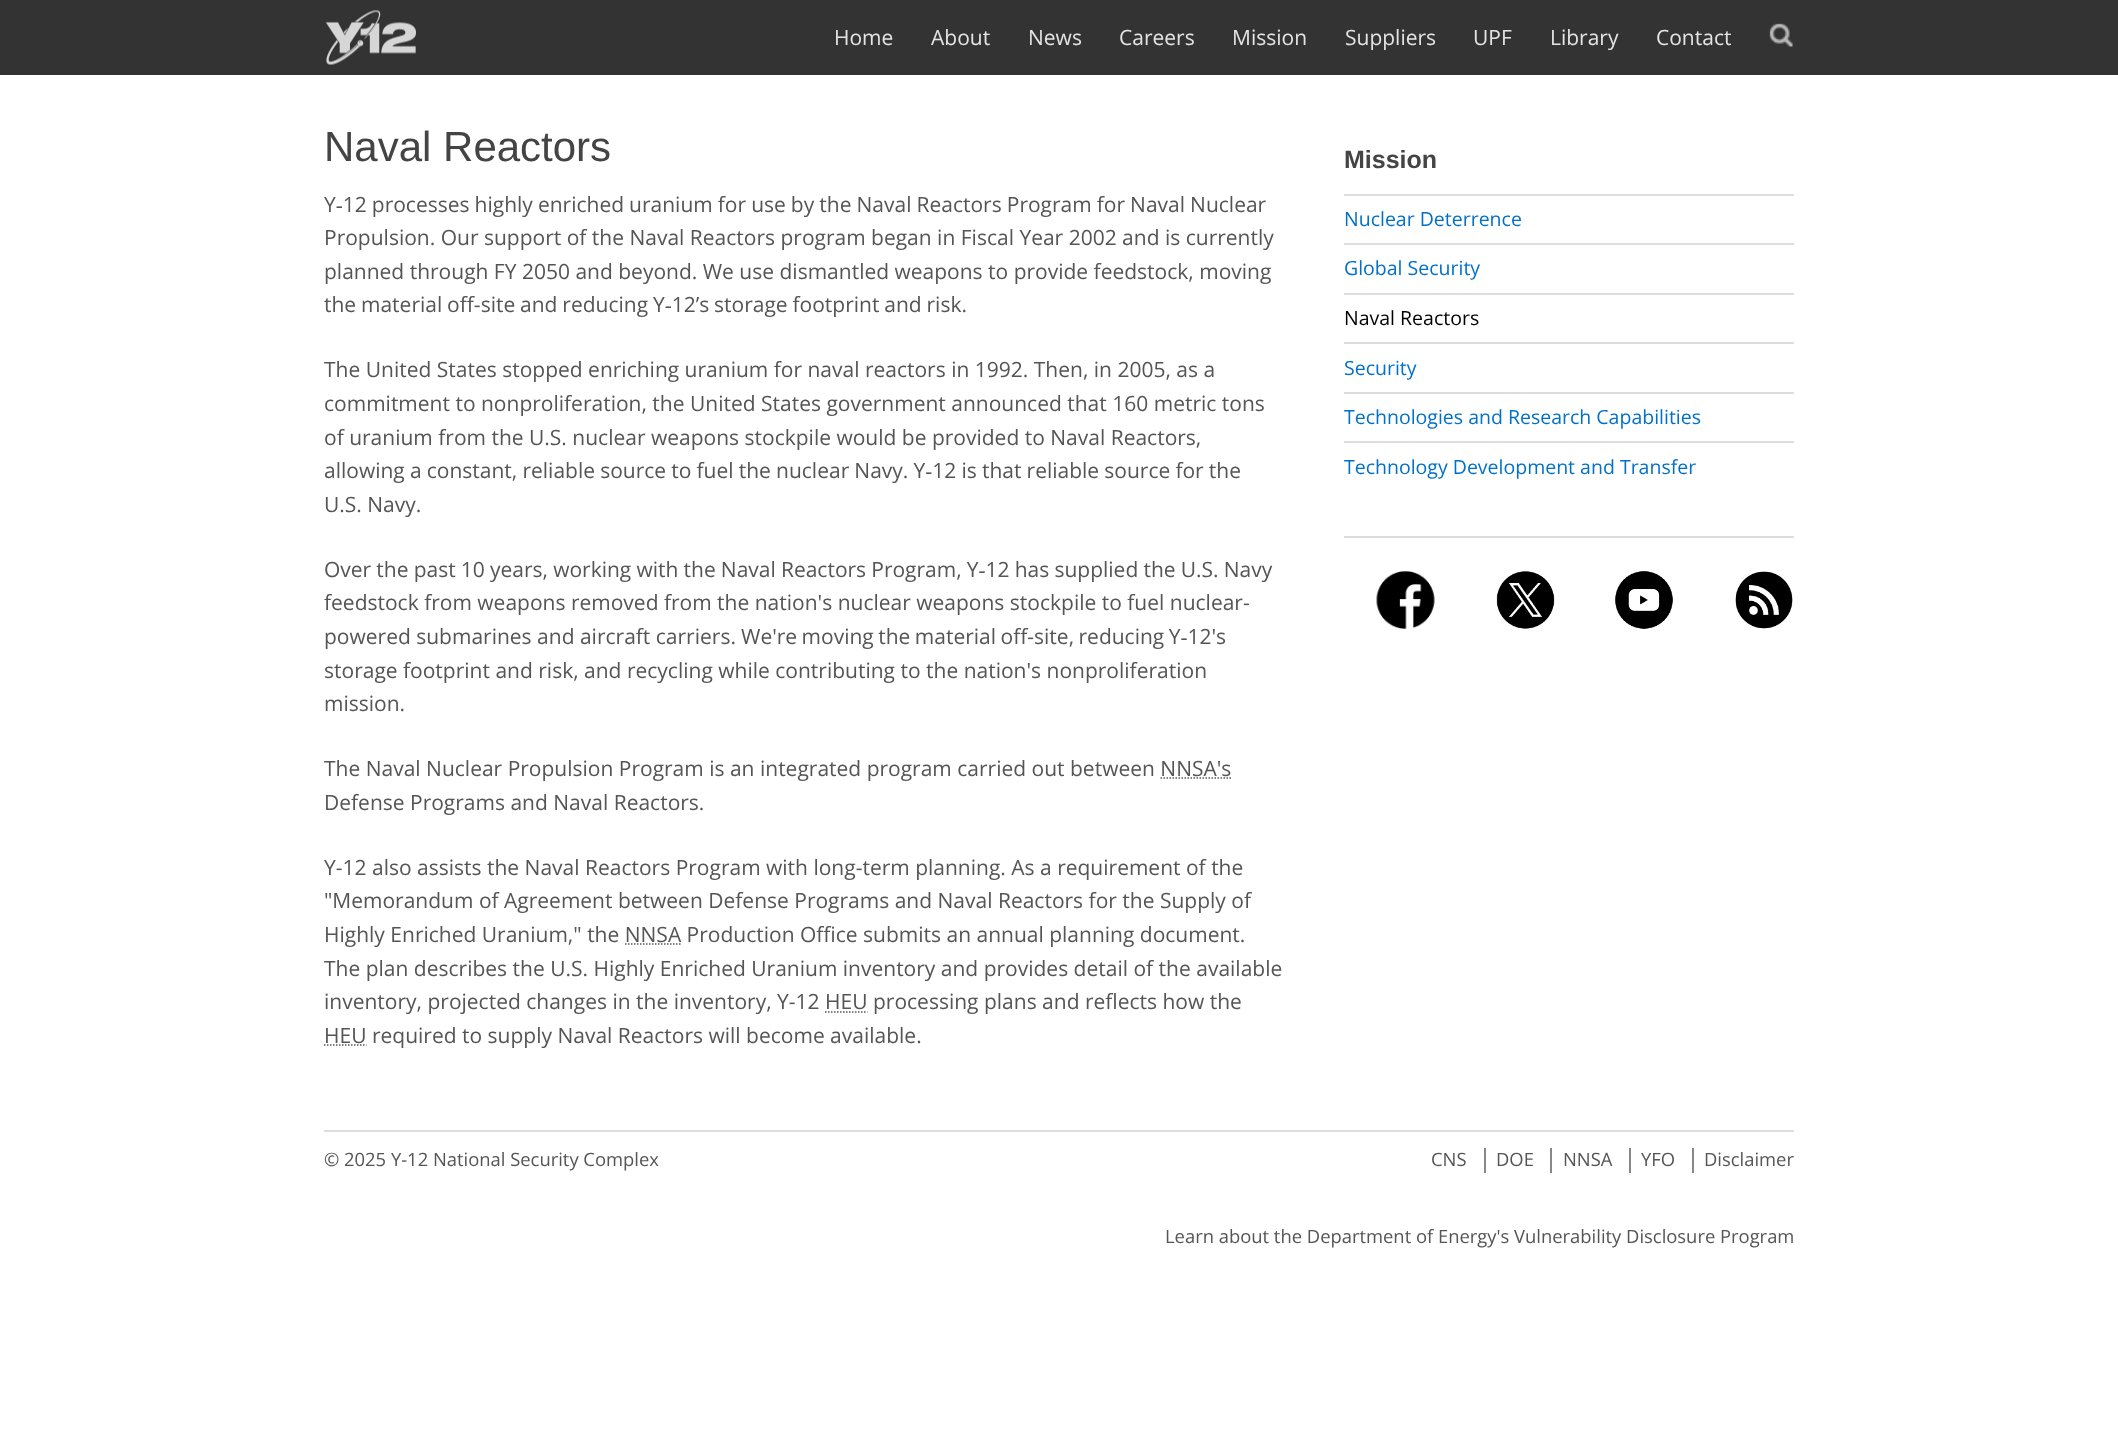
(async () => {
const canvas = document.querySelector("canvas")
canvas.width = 2118
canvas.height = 1446
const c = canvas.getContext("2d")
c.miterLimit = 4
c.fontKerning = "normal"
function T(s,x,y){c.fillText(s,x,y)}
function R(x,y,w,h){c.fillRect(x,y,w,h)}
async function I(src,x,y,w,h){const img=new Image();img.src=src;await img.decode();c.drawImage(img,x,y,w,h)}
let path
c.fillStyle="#fff"
R(0,0,2118,1446)
c.fillStyle="#333"
R(0,0,2118,75)
await I("1.png",326,10,90,55)
c.font="21px Open Sans"
c.fillStyle="#e4e4e4"
T("Home",834,45)
T("About",931,45)
T("News",1028,45)
T("Careers",1119,45)
T("Mission",1232,45)
T("Suppliers",1345,45)
T("UPF",1473,45)
T("Library",1550,45)
T("Contact",1656,45)
await I("2.png",1769,23,24,24)
c.font="42px Liberation Sans"
c.fillStyle="#444"
T("Naval Reactors",324,161)
c.wordSpacing="-0.4px"
c.font="21px Open Sans"
c.fillStyle="#555"
T("Y‑12 processes highly enriched uranium for use by the Naval Reactors Program for Naval Nuclear",324,212)
c.wordSpacing="0px"
T("Propulsion. Our support of the Naval Reactors program began in Fiscal Year 2002 and is currently",324,245)
T("planned through FY 2050 and beyond. We use dismantled weapons to provide feedstock, moving",324,279)
c.wordSpacing="-0.6px"
T("the material off-site and reducing Y‑12’s storage footprint and risk.",324,312)
c.wordSpacing="0px"
T("The United States stopped enriching uranium for naval reactors in 1992. Then, in 2005, as a",324,377)
T("commitment to nonproliferation, the United States government announced that 160 metric tons",324,411)
T("of uranium from the U.S. nuclear weapons stockpile would be provided to Naval Reactors,",324,445)
c.wordSpacing="-0.3px"
T("allowing a constant, reliable source to fuel the nuclear Navy. Y‑12 is that reliable source for the",324,478)
c.wordSpacing="0px"
T("U.S. Navy.",324,512)
c.wordSpacing="-0.3px"
T("Over the past 10 years, working with the Naval Reactors Program, Y‑12 has supplied the U.S. Navy",324,577)
c.wordSpacing="0px"
T("feedstock from weapons removed from the nation's nuclear weapons stockpile to fuel nuclear-",324,610)
T("powered submarines and aircraft carriers.",324,644)
c.wordSpacing="-1px"
T("We're moving the material off-site, reducing Y‑12's",741,644)
c.wordSpacing="0px"
T("storage footprint and risk, and recycling while contributing to the nation's nonproliferation",324,678)
T("mission.",324,711)
T("The Naval Nuclear Propulsion Program is an integrated program carried out between NNSA's",324,776)
path = new Path2D("M1160.5 778h71")
c.strokeStyle="#555"
c.lineWidth=1.5
c.setLineDash([1.5,1.5])
c.stroke(path)
T("Defense Programs and Naval Reactors.",324,810)
T("Y-12 also assists the Naval Reactors Program with long-term planning. As a requirement of the",324,875)
T("\"Memorandum of Agreement between Defense Programs and Naval Reactors for the Supply of",324,908)
T("Highly Enriched Uranium,\" the NNSA Production Office submits an annual planning document.",324,942)
path = new Path2D("M625 944h56")
c.stroke(path)
T("The plan describes the U.S. Highly Enriched Uranium inventory and provides detail of the available",324,976)
T("inventory, projected changes in the inventory, Y-12 HEU processing plans and reflects how the",324,1009)
path = new Path2D("M825 1012h42.5")
c.stroke(path)
path = new Path2D("M324 1045h42.5")
c.stroke(path)
T("HEU required to supply Naval Reactors will become available.",324,1043)
c.font="bold 25px Liberation Sans"
c.fillStyle="#444"
T("Mission",1344,168)
c.fillStyle="#ddd"
R(1344,194,450,2)
c.font="19.5px Open Sans"
c.fillStyle="#0070c9"
T("Nuclear Deterrence",1344,226)
c.fillStyle="#ddd"
R(1344,243,450,2)
c.fillStyle="#0070c9"
T("Global Security",1344,275)
c.fillStyle="#ddd"
R(1344,293,450,2)
c.fillStyle="#000"
T("Naval Reactors",1344,325)
c.fillStyle="#ddd"
R(1344,342,450,2)
c.fillStyle="#0070c9"
T("Security",1344,375)
c.fillStyle="#ddd"
R(1344,392,450,2)
c.fillStyle="#0070c9"
T("Technologies and Research Capabilities",1344,424)
c.fillStyle="#ddd"
R(1344,441,450,2)
c.fillStyle="#0070c9"
T("Technology Development and Transfer",1344,474)
c.fillStyle="#ddd"
R(1344,536,450,2)
await I("3.png",1376,571,59,59)
await I("4.png",1496,571,59,58)
await I("5.png",1615,571,58,58)
await I("6.png",1735,571,58,58)
R(324,1130,1470,2)
c.font="18.4px Open Sans"
c.fillStyle="#555"
T("© 2025 Y-12 National Security Complex",324,1166)
T("CNS",1431,1166)
T("DOE",1496,1166)
c.fillStyle="#888"
R(1484,1148,2,25)
c.fillStyle="#555"
T("NNSA",1563,1166)
c.fillStyle="#888"
R(1550,1148,2,25)
c.fillStyle="#555"
T("YFO",1641,1166)
c.fillStyle="#888"
R(1629,1148,2,25)
c.fillStyle="#555"
T("Disclaimer",1704,1166)
c.fillStyle="#888"
R(1692,1148,2,25)
c.fillStyle="#555"
T("Learn about the Department of Energy's Vulnerability Disclosure Program",1165,1243)
})()
